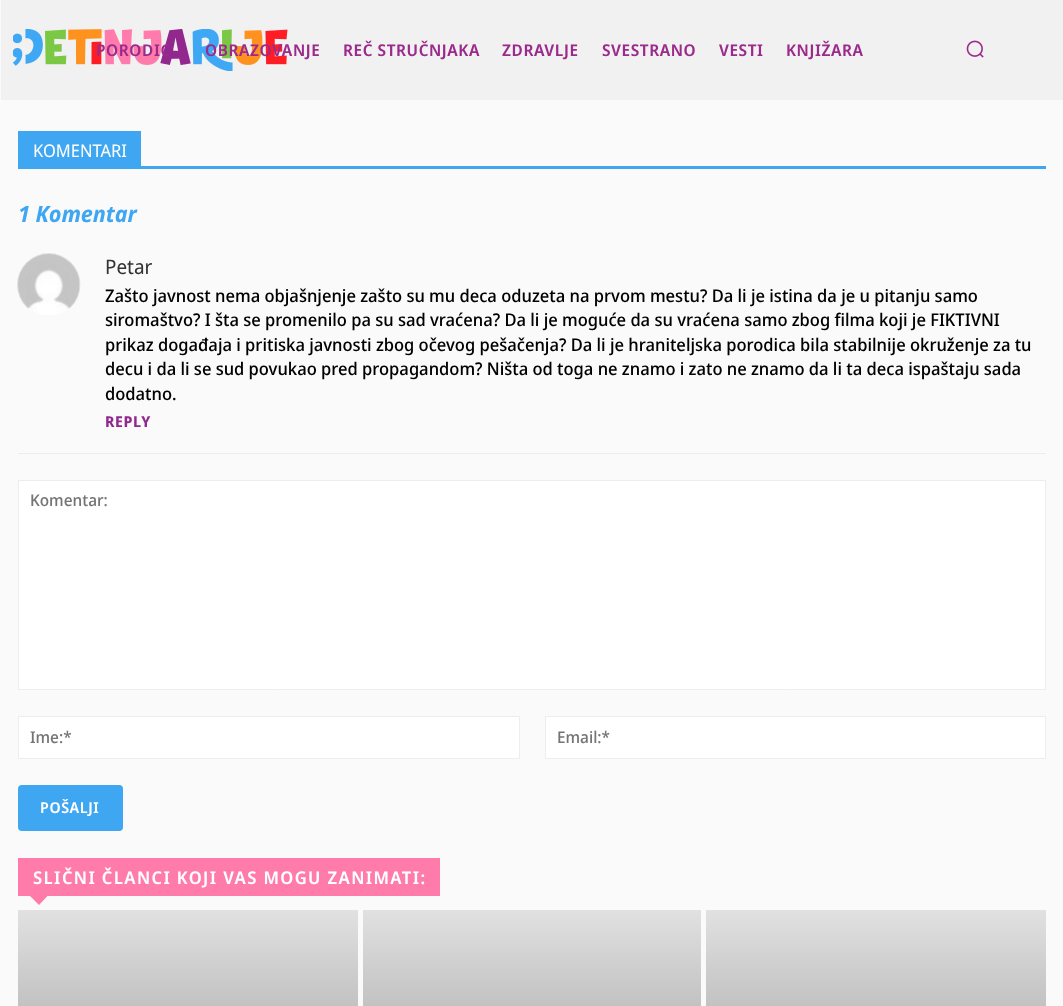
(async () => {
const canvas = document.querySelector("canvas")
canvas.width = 1063
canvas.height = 1006
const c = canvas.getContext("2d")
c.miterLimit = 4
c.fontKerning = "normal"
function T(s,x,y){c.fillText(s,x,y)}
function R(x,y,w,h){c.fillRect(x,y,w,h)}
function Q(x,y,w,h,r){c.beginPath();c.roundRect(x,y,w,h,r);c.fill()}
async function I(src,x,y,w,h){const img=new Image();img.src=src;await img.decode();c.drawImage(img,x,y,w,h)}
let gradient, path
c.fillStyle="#fafafa"
R(0,0,1063,1006)
c.fillStyle="#f1f1f1"
R(1,0,1062,100)
await I("1.png",13,29,275,42)
c.letterSpacing="0.6px"
c.font="600 16.25px Noto Sans Display"
c.fillStyle="#9c298c"
T("PORODIC",96,56)
T("OBRAZOVANJE",205,56)
T("REČ STRUČNJAKA",343,56)
T("ZDRAVLJE",502,56)
T("SVESTRANO",602,56)
T("VESTI",719,56)
T("KNJIŽARA",786,56)
await I("2.png",966,40,18,18)
c.fillStyle="#3fa6f2"
R(18,166,1028,3)
R(18,131,123,35)
c.letterSpacing="0px"
c.font="17.5px Noto Sans Display"
c.fillStyle="#fff"
T("KOMENTARI",33,157)
c.font="italic bold 22.5px Noto Sans Display"
c.fillStyle="#3fa6f2"
T("1 Komentar",18,222)
c.fillStyle="#ededed"
R(18,453,1028,1)
await I("3.png",17,253,64,62)
c.font="20px Noto Sans Display"
c.fillStyle="#333"
T("Petar",105,274)
c.font="500 17.5px Noto Sans Display"
c.fillStyle="#000"
T("Zašto javnost nema objašnjenje zašto su mu deca oduzeta na prvom mestu? Da li je istina da je u pitanju samo",105,302)
T("siromaštvo? I šta se promenilo pa su sad vraćena? Da li je moguće da su vraćena samo zbog filma koji je FIKTIVNI",105,326)
T("prikaz događaja i pritiska javnosti zbog očevog pešačenja? Da li je hraniteljska porodica bila stabilnije okruženje za tu",105,351)
T("decu i da li se sud povukao pred propagandom? Ništa od toga ne znamo i zato ne znamo da li ta deca ispaštaju sada",105,375)
T("dodatno.",105,400)
c.letterSpacing="0.6px"
c.font="bold 15px Noto Sans Display"
c.fillStyle="#92278e"
T("REPLY",105,427)
c.fillStyle="#fff"
c.beginPath()
c.rect(18.5,480.5,1027,209)
c.fill()
c.strokeStyle="#ededed"
c.stroke()
c.letterSpacing="0px"
c.font="500 16.25px Noto Sans Display"
c.fillStyle="#757575"
T("Komentar:",30,506)
c.fillStyle="#fff"
c.beginPath()
c.rect(18.5,716.5,501,42)
c.fill()
c.stroke()
c.fillStyle="#757575"
T("Ime:*",30,743)
c.fillStyle="#fff"
c.beginPath()
c.rect(545.5,716.5,500,42)
c.fill()
c.stroke()
c.fillStyle="#757575"
T("Email:*",557,743)
c.fillStyle="#3fa6f2"
Q(18,785,105,46,4)
c.letterSpacing="0.6px"
c.font="600 15px Noto Sans Display"
c.fillStyle="#fff"
T("POŠALJI",40,813)
c.fillStyle="#ff7ba9"
R(18,858,422,38)
c.letterSpacing="1.4px"
c.font="600 17.5px Noto Sans Display"
c.fillStyle="#fff"
T("SLIČNI ČLANCI KOJI VAS MOGU ZANIMATI:",33,884)
c.fillStyle="#ff7ba9"
path = new Path2D("M30 896h17.5l-8.5 9z")
c.fill(path)
gradient = c.createLinearGradient(188,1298,188,910)
gradient.addColorStop(0,"#646464")
gradient.addColorStop(1,"#e1e1e1")
c.fillStyle = gradient
R(18,910,340,96)
gradient = c.createLinearGradient(532,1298,532,910)
gradient.addColorStop(0,"#646464")
gradient.addColorStop(1,"#e1e1e1")
c.fillStyle = gradient
R(363,910,338,96)
gradient = c.createLinearGradient(876,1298,876,910)
gradient.addColorStop(0,"#646464")
gradient.addColorStop(1,"#e1e1e1")
c.fillStyle = gradient
R(706,910,340,96)
})()
